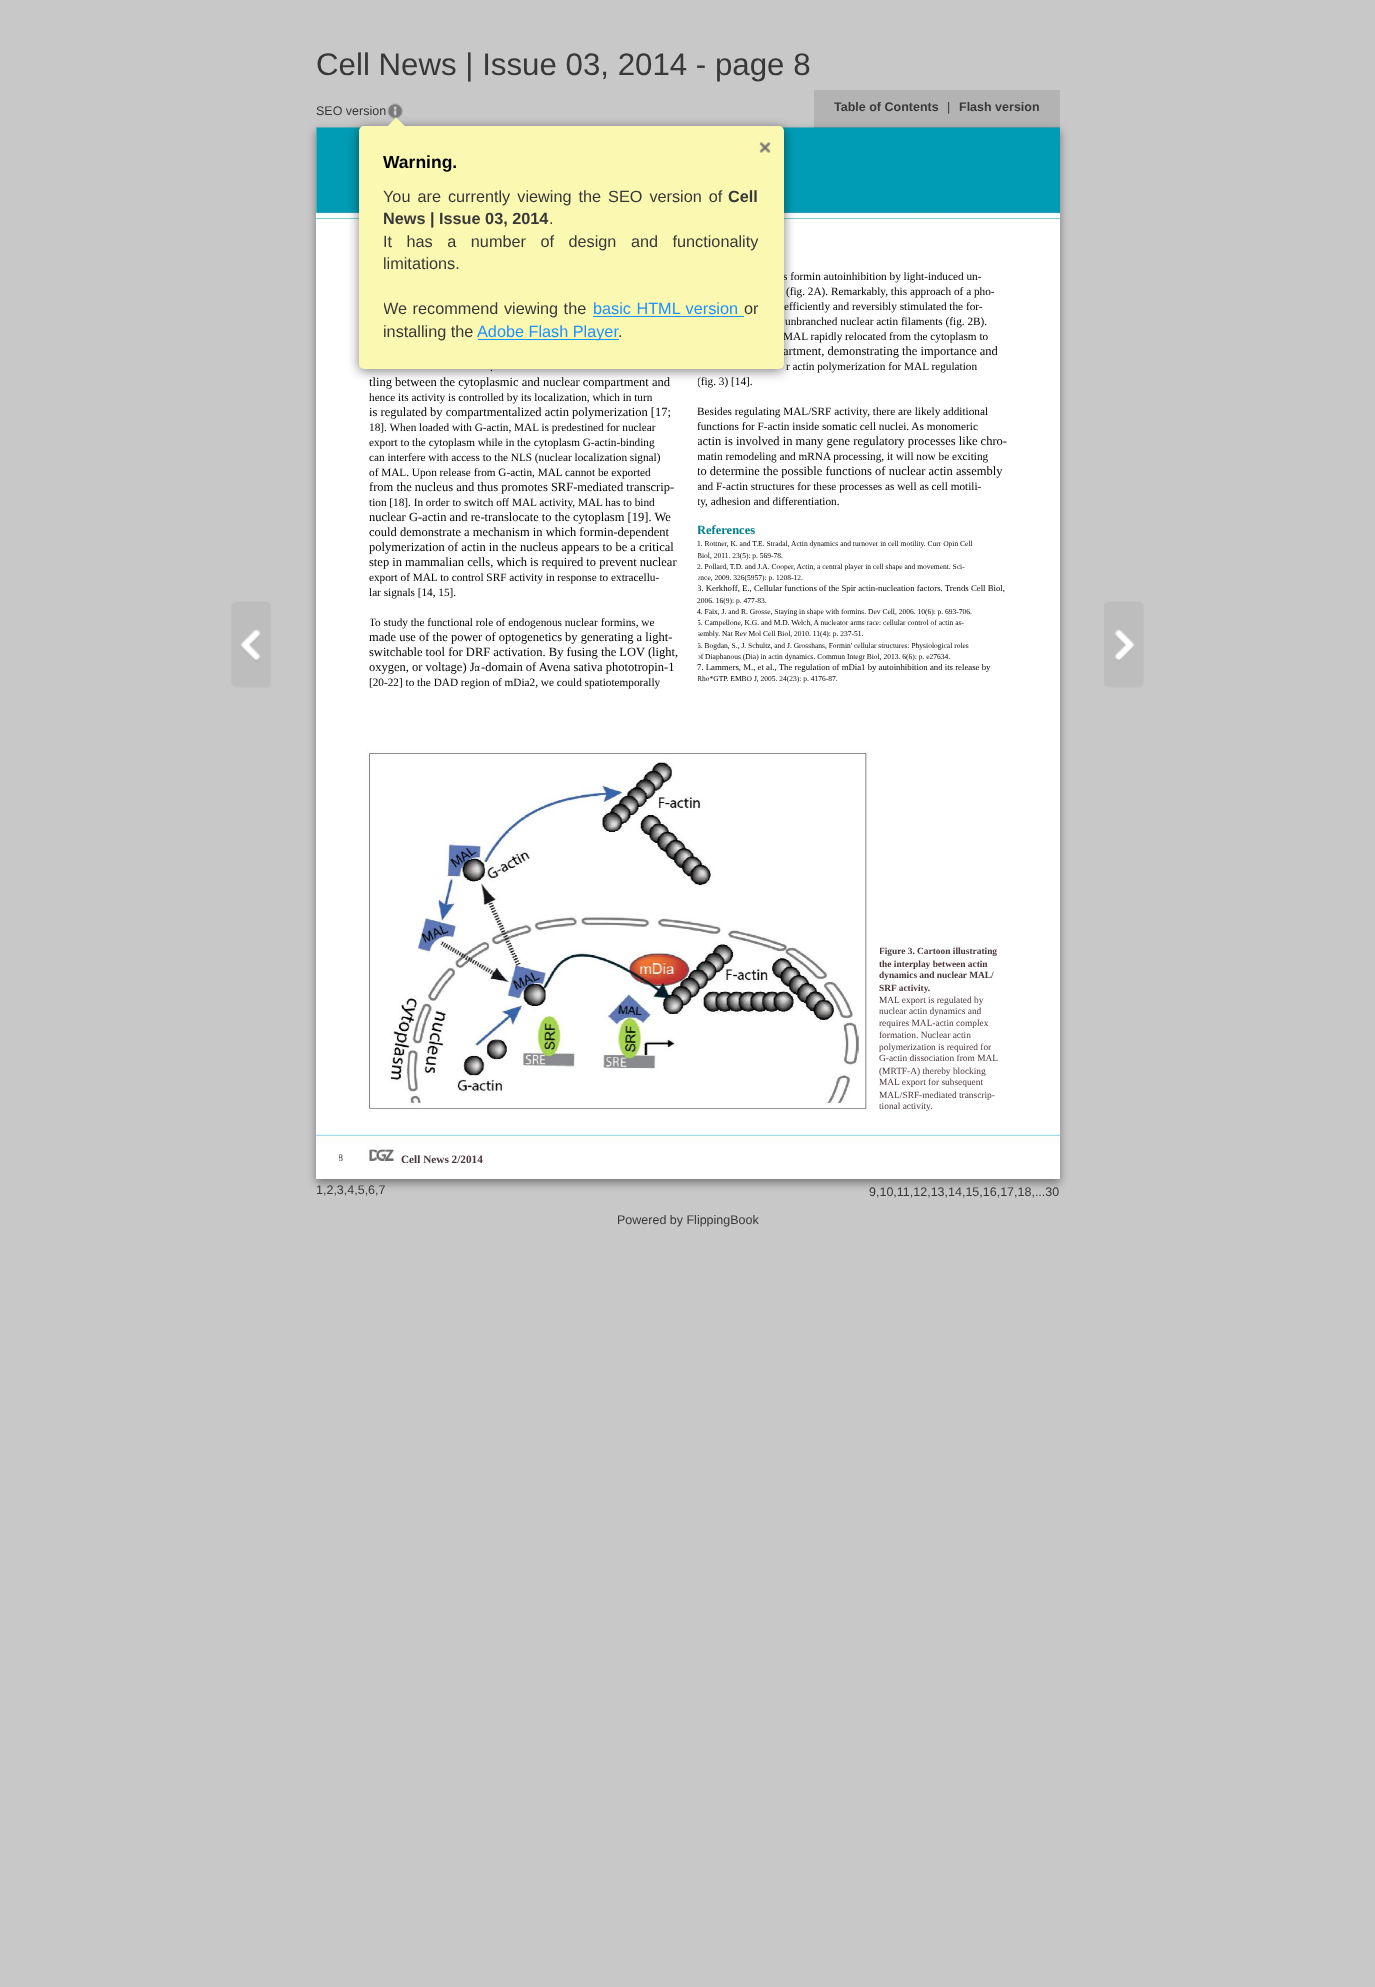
(async () => {
const canvas = document.querySelector("canvas")
canvas.width = 1375
canvas.height = 1987
const c = canvas.getContext("2d")
c.miterLimit = 4
c.fontKerning = "normal"
function T(s,x,y){c.fillText(s,x,y)}
function R(x,y,w,h){c.fillRect(x,y,w,h)}
function Q(x,y,w,h,r){c.beginPath();c.roundRect(x,y,w,h,r);c.fill()}
async function I(src,x,y,w,h){const img=new Image();img.src=src;await img.decode();c.drawImage(img,x,y,w,h)}
let path
c.fillStyle="#c8c8c8"
R(0,0,1375,1987)
c.font="31.25px Liberation Sans"
c.fillStyle="#383838"
T("Cell News | Issue 03, 2014 - page 8",316,75)
c.fillStyle="#00000066"
c.filter="blur(4px)"
c.beginPath()
c.rect(316,131,744,1052)
c.fill()
c.filter="none"
c.fillStyle="#fff"
R(316,128,744,1051)
c.font="12.5px Liberation Sans"
c.fillStyle="#383838"
T("SEO version",316,115)
await I("1.png",387,103,16,16)
await I("3.png",316,127,744,1034)
c.fillStyle="#00000080"
c.filter="blur(6px)"
c.beginPath()
c.roundRect(359,129,425,242,5)
c.fill()
c.filter="none"
c.font="11.25px Liberation Serif"
c.fillStyle="#000"
T("s formin autoinhibition by light-induced un-",783,280)
T("MAL rapidly relocated from the cytoplasm to",783,340)
c.font="12.5px Liberation Serif"
T("artment, demonstrating the importance and",783,355)
c.fillStyle="#faf8b1"
Q(359,126,425,243,5)
path = new Path2D("M409 130h-25l12-12.5z")
c.fill(path)
await I("2.png",759,142,12,11)
c.font="bold 17.5px Liberation Sans"
c.fillStyle="#000"
T("Warning.",383,168)
c.wordSpacing="2.5px"
c.font="16.25px Liberation Sans"
c.fillStyle="#383838"
T("You are currently viewing the SEO version of",383,202)
c.wordSpacing="0px"
c.font="bold 16.25px Liberation Sans"
T("Cell",728,202)
T("News | Issue 03, 2014",383,224)
c.font="16.25px Liberation Sans"
T(".",549,224)
c.wordSpacing="10px"
T("It has a number of design and functionality",383,247)
c.wordSpacing="0px"
T("limitations.",383,269)
c.save()
c.beginPath()
c.rect(384,299,375,45)
c.clip()
c.wordSpacing="1px"
T("We recommend viewing the",383,314)
c.restore()
c.wordSpacing="1px"
c.fillStyle="#1e90ff"
T("basic HTML version",593,314)
R(593,316,151,1)
c.wordSpacing="0px"
c.fillStyle="#383838"
T("or",744,314)
T("installing the",383,337)
c.fillStyle="#1e90ff"
R(478,339,141,1)
T("Adobe Flash Player",477,337)
c.fillStyle="#383838"
T(".",618,337)
c.fillStyle="#0000001a"
R(814,90,246,38)
c.font="bold 12.5px Liberation Sans"
c.fillStyle="#383838"
T("Table of Contents",834,111)
c.font="12.5px Liberation Sans"
T("|",947,111)
c.font="bold 12.5px Liberation Sans"
T("Flash version",959,111)
c.font="11.25px Liberation Serif"
c.fillStyle="#000"
T("(fig. 2A). Remarkably, this approach of a pho-",786,295)
T("efficiently and reversibly stimulated the for-",784,310)
T("unbranched nuclear actin filaments (fig. 2B).",785,325)
T(".",490,371)
T("r actin polymerization for MAL regulation",786,370)
c.font="12.5px Liberation Serif"
T("tling between the cytoplasmic and nuclear compartment and",369,386)
c.save()
c.beginPath()
c.rect(698,373,57,17)
c.clip()
c.font="11.25px Liberation Serif"
T("(fig. 3) [14].",697,385)
c.restore()
c.font="11.25px Liberation Serif"
T("hence its activity is controlled by its localization, which in turn",369,401)
c.font="12.5px Liberation Serif"
T("is regulated by compartmentalized actin polymerization [17;",369,416)
c.font="11.25px Liberation Serif"
T("Besides regulating MAL/SRF activity, there are likely additional",697,415)
T("18]. When loaded with G-actin, MAL is predestined for nuclear",369,431)
T("functions for F-actin inside somatic cell nuclei. As monomeric",697,430)
T("export to the cytoplasm while in the cytoplasm G-actin-binding",369,446)
c.save()
c.beginPath()
c.rect(698,433,310,17)
c.clip()
c.font="12.5px Liberation Serif"
T("actin is involved in many gene regulatory processes like chro-",697,445)
c.restore()
T("can interfere with access to the NLS (nuclear localization signal)",369,461)
c.save()
c.beginPath()
c.rect(698,448,310,17)
c.clip()
T("matin remodeling and mRNA processing, it will now be exciting",697,460)
c.restore()
T("of MAL. Upon release from G-actin, MAL cannot be exported",369,476)
c.save()
c.beginPath()
c.rect(698,463,310,17)
c.clip()
c.font="12.5px Liberation Serif"
T("to determine the possible functions of nuclear actin assembly",697,475)
c.restore()
c.font="12.5px Liberation Serif"
T("from the nucleus and thus promotes SRF-mediated transcrip-",369,491)
c.save()
c.beginPath()
c.rect(698,478,310,17)
c.clip()
c.font="11.25px Liberation Serif"
T("and F-actin structures for these processes as well as cell motili-",697,490)
c.restore()
c.font="11.25px Liberation Serif"
T("tion [18]. In order to switch off MAL activity, MAL has to bind",369,506)
c.save()
c.beginPath()
c.rect(698,493,156,17)
c.clip()
T("ty, adhesion and differentiation.",697,505)
c.restore()
c.font="12.5px Liberation Serif"
T("nuclear G-actin and re-translocate to the cytoplasm [19]. We",369,521)
T("could demonstrate a mechanism in which formin-dependent",369,536)
c.save()
c.beginPath()
c.rect(698,520,61,20)
c.clip()
c.font="bold 12.5px Liberation Serif"
c.fillStyle="#007e8b"
T("References",697,534)
c.restore()
T("polymerization of actin in the nucleus appears to be a critical",369,551)
c.font="7.5px Liberation Serif"
T("1. Rottner, K. and T.E. Stradal, Actin dynamics and turnover in cell motility. Curr Opin Cell",697,546)
c.save()
c.beginPath()
c.rect(698,549,95,12)
c.clip()
T("Biol, 2011. 23(5): p. 569-78.",697,558)
c.restore()
c.font="12.5px Liberation Serif"
T("step in mammalian cells, which is required to prevent nuclear",369,566)
c.font="7.5px Liberation Serif"
T("2. Pollard, T.D. and J.A. Cooper, Actin, a central player in cell shape and movement. Sci-",697,569)
c.font="11.25px Liberation Serif"
T("export of MAL to control SRF activity in response to extracellu-",369,581)
c.save()
c.beginPath()
c.rect(698,571,121,13)
c.clip()
c.font="7.5px Liberation Serif"
T("ence, 2009. 326(5957): p. 1208-12.",697,580)
c.restore()
T("lar signals [14, 15].",369,596)
c.save()
c.beginPath()
c.rect(698,583,310,12)
c.clip()
c.font="8.75px Liberation Serif"
T("3. Kerkhoff, E., Cellular functions of the Spir actin-nucleation factors. Trends Cell Biol,",697,591)
c.restore()
c.font="7.5px Liberation Serif"
T("2006. 16(9): p. 477-83.",697,603)
T("4. Faix, J. and R. Grosse, Staying in shape with formins. Dev Cell, 2006. 10(6): p. 693-706.",697,614)
c.save()
c.beginPath()
c.rect(370,614,310,17)
c.clip()
c.font="11.25px Liberation Serif"
T("To study the functional role of endogenous nuclear formins, we",369,626)
c.restore()
c.save()
c.beginPath()
c.rect(698,616,310,13)
c.clip()
T("5. Campellone, K.G. and M.D. Welch, A nucleator arms race: cellular control of actin as-",697,625)
c.restore()
c.font="12.5px Liberation Serif"
T("made use of the power of optogenetics by generating a light-",369,641)
c.save()
c.beginPath()
c.rect(698,628,182,12)
c.clip()
c.font="7.5px Liberation Serif"
T("sembly. Nat Rev Mol Cell Biol, 2010. 11(4): p. 237-51.",697,636)
c.restore()
c.save()
c.beginPath()
c.rect(698,639,310,12)
c.clip()
c.font="7.5px Liberation Serif"
T("6. Bogdan, S., J. Schultz, and J. Grosshans, Formin' cellular structures: Physiological roles",697,648)
c.restore()
T("switchable tool for DRF activation. By fusing the LOV (light,",369,656)
c.save()
c.beginPath()
c.rect(698,650,282,13)
c.clip()
c.font="7.5px Liberation Serif"
T("of Diaphanous (Dia) in actin dynamics. Commun Integr Biol, 2013. 6(6): p. e27634.",697,659)
c.restore()
T("oxygen, or voltage) J",369,671)
c.save()
c.beginPath()
c.rect(475,659,6,16)
c.clip()
c.font="11.25px Liberation Serif"
T("α",474,671)
c.restore()
T("-domain of Avena sativa phototropin-1",481,671)
c.font="8.75px Liberation Serif"
T("7. Lammers, M., et al., The regulation of mDia1 by autoinhibition and its release by",697,670)
c.font="11.25px Liberation Serif"
T("[20-22] to the DAD region of mDia2, we could spatiotemporally",369,686)
c.save()
c.beginPath()
c.rect(698,673,151,12)
c.clip()
c.font="7.5px Liberation Serif"
T("Rho*GTP. EMBO J, 2005. 24(23): p. 4176-87.",697,681)
c.restore()
c.save()
c.beginPath()
c.rect(880,944,126,16)
c.clip()
c.font="bold 9.4px Liberation Serif"
c.fillStyle="#4a3438"
T("Figure 3. Cartoon illustrating",879,954)
c.restore()
c.font="bold 9.4px Liberation Serif"
c.fillStyle="#4a3438"
T("the interplay between actin",879,967)
T("dynamics and nuclear MAL/",879,978)
T("SRF activity.",879,991)
c.font="9.4px Liberation Serif"
T("MAL export is regulated by",879,1003)
T("nuclear actin dynamics and",879,1014)
T("requires MAL-actin complex",879,1026)
T("formation. Nuclear actin",879,1038)
T("polymerization is required for",879,1050)
T("G-actin dissociation from MAL",879,1061)
T("(MRTF-A) thereby blocking",879,1074)
T("MAL export for subsequent",879,1085)
T("MAL/SRF-mediated transcrip-",879,1098)
T("tional activity.",879,1109)
c.save()
c.beginPath()
c.rect(339,1151,5,15)
c.clip()
c.font="10px Liberation Serif"
T("8",338,1161)
c.restore()
c.font="bold 11.25px Liberation Serif"
T("Cell News 2/2014",401,1163)
c.font="12.5px Liberation Sans"
c.fillStyle="#383838"
T("1,2,3,4,5,6,7",316,1194)
T("9,10,11,12,13,14,15,16,17,18,...30",869,1196)
T("Powered by FlippingBook",617,1224)
await I("4.png",231,601,40,87)
await I("5.png",1104,601,40,87)
})()
